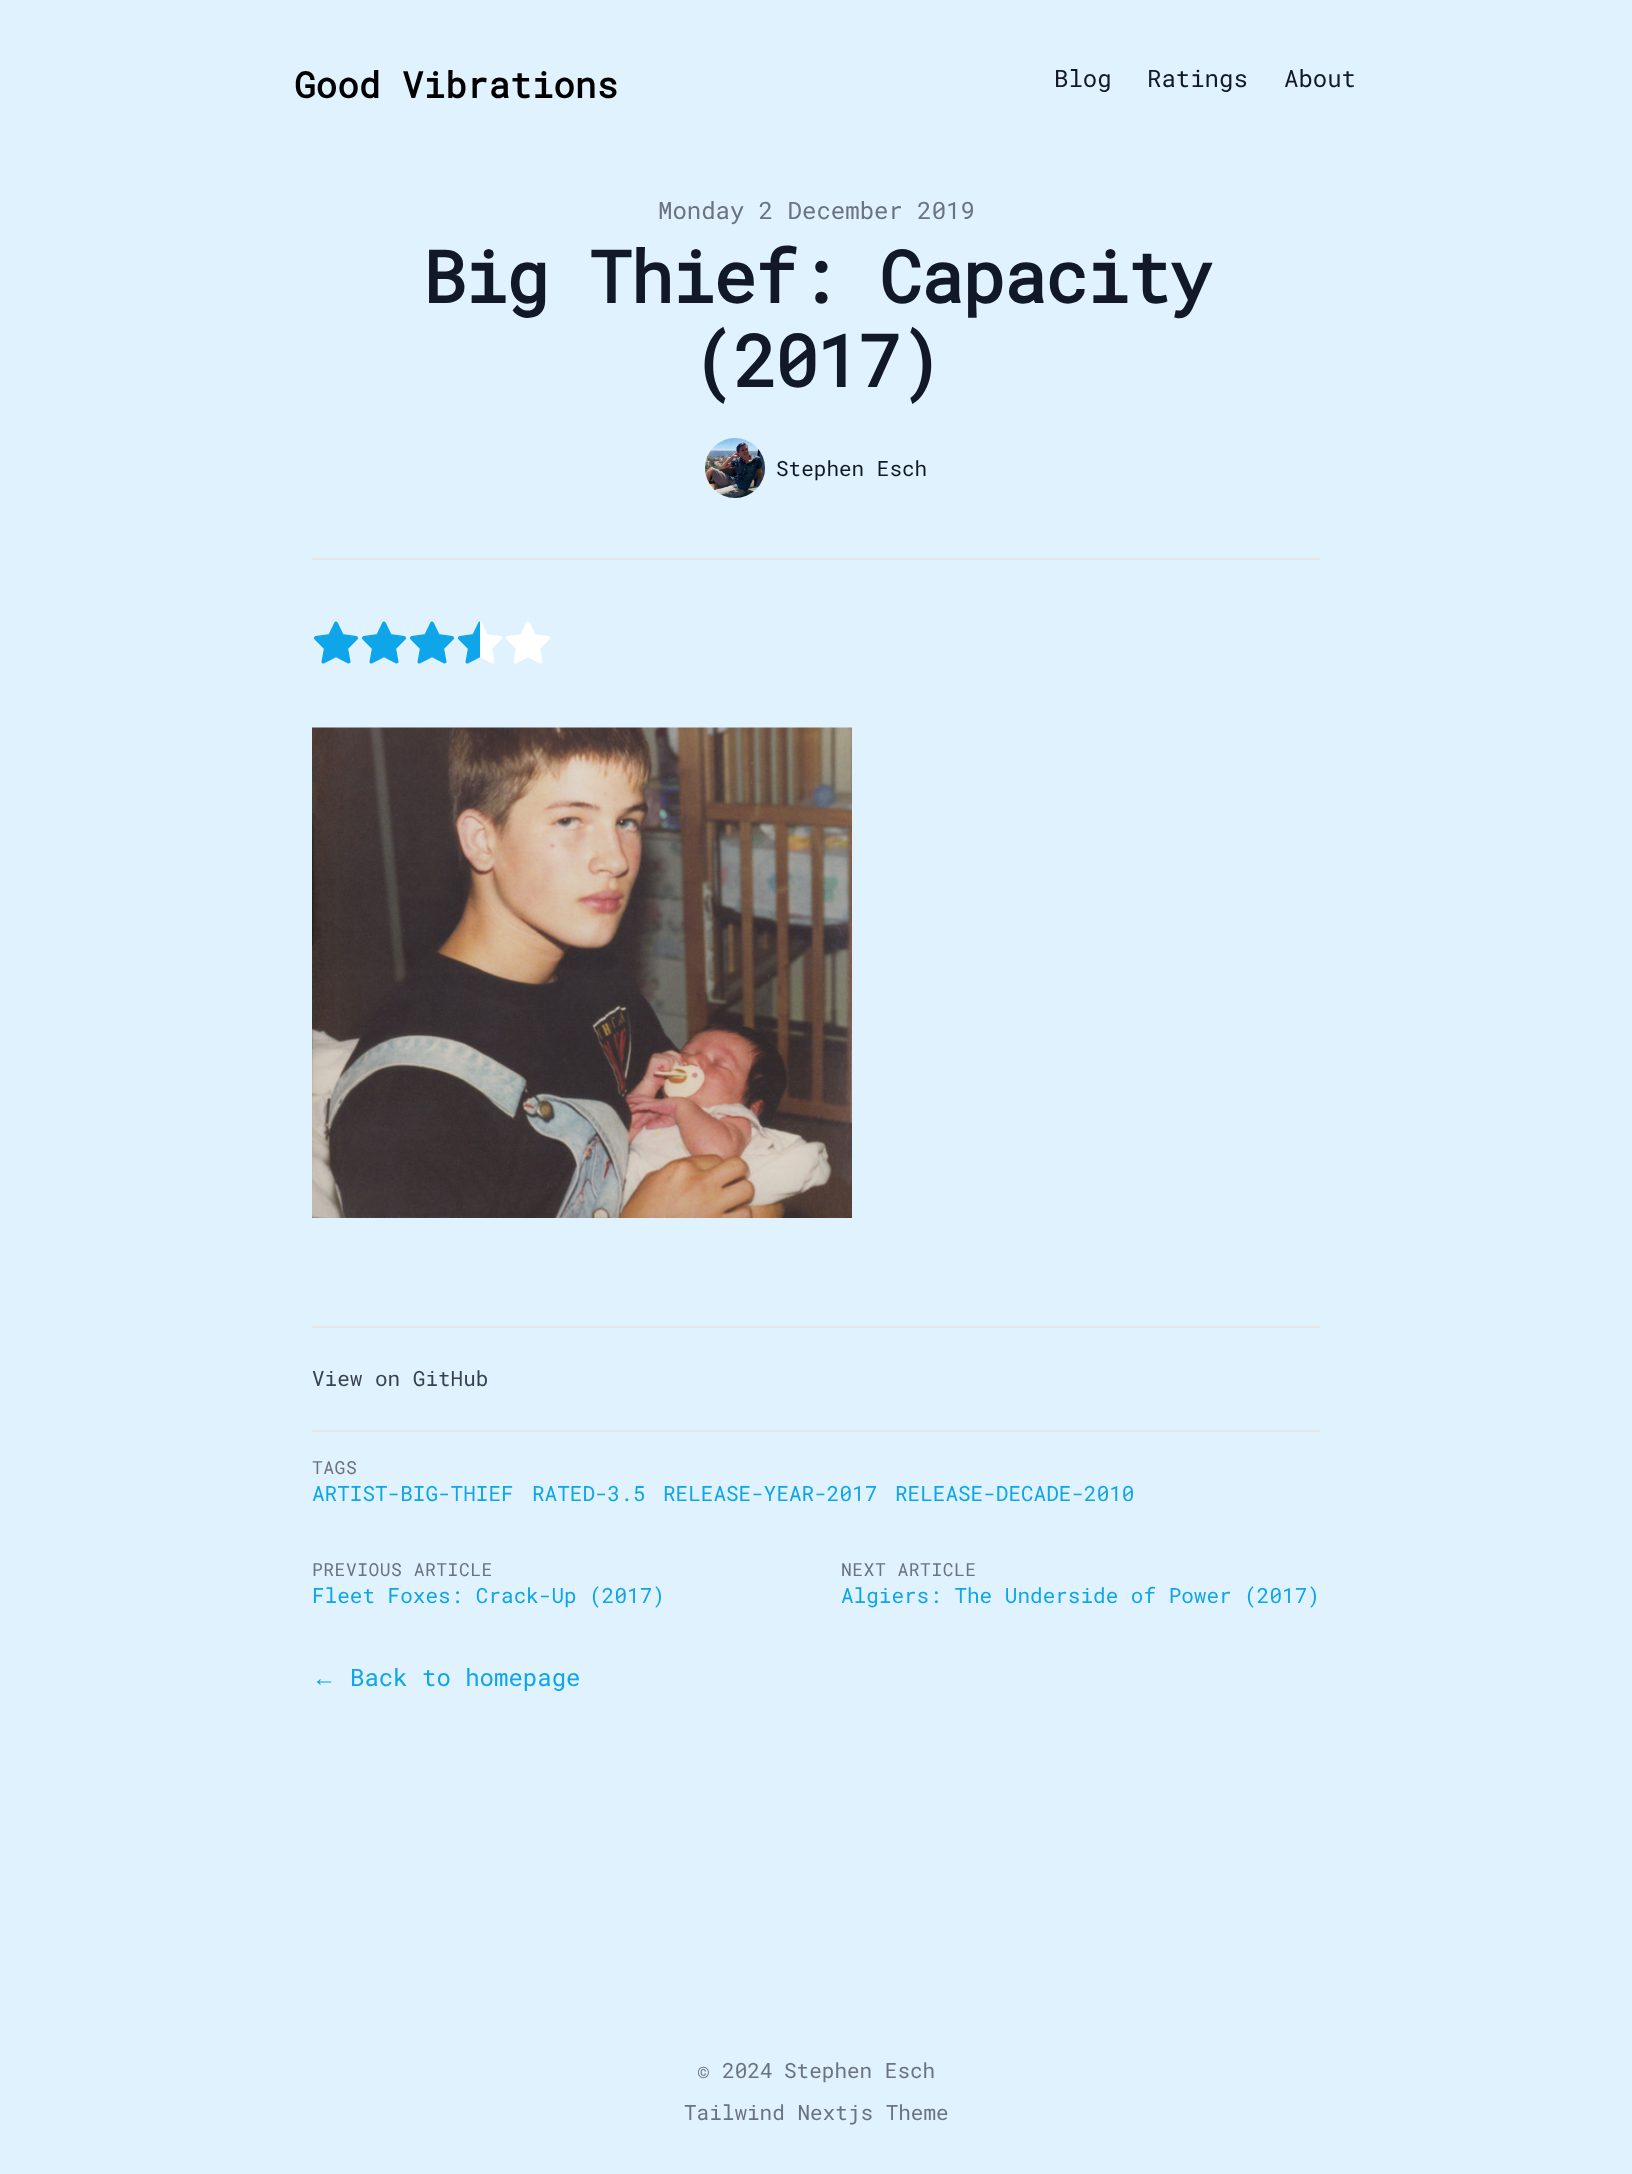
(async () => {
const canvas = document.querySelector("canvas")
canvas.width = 1632
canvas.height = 2174
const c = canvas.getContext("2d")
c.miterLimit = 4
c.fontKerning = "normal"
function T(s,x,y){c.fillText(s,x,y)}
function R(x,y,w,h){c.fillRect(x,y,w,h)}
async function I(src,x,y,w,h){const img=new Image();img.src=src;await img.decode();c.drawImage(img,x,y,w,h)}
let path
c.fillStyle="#e0f2fe"
R(0,0,1632,2174)
c.font="bold 36px Roboto Mono"
c.fillStyle="#000"
T("Good Vibrations",294,98)
c.font="24px Roboto Mono"
c.fillStyle="#111827"
T("Blog",1054,87)
T("Ratings",1147,87)
T("About",1284,87)
c.fillStyle="#6b7280"
T("Monday 2 December 2019",658,219)
c.letterSpacing="-1.75px"
c.font="bold 72px Roboto Mono"
c.fillStyle="#111827"
T("Big Thief: Capacity",423,303)
T("(2017)",692,387)
await I("1.png",705,438,60,60)
c.letterSpacing="0px"
c.font="21px Roboto Mono"
T("Stephen Esch",776,476)
c.fillStyle="#e5e7eb"
R(312,558,1008,2)
c.fillStyle="#0ea5e9"
path = new Path2D("M336 624l6 12l14 2l-10 10l2 14l-12-7l-12 7l2-14l-10-10l14-2z")
c.fill(path)
path = new Path2D("M336 623.5l6 12.5l14 2l-10 10l2.5 13.5l-12.5-6.5l-12.5 6.5l2.5-13.5l-10-10l14-2z")
c.strokeStyle="#0ea5e9"
c.lineWidth=4
c.lineCap="round"
c.lineJoin="round"
c.stroke(path)
path = new Path2D("M384 624l6 12l14 2l-10 10l2 14l-12-7l-12 7l2-14l-10-10l14-2z")
c.fill(path)
path = new Path2D("M384 623.5l6 12.5l14 2l-10 10l2.5 13.5l-12.5-6.5l-12.5 6.5l2.5-13.5l-10-10l14-2z")
c.stroke(path)
path = new Path2D("M432 624l6 12l14 2l-10 10l2 14l-12-7l-12 7l2-14l-10-10l14-2z")
c.fill(path)
path = new Path2D("M432 623.5l6 12.5l14 2l-10 10l2.5 13.5l-12.5-6.5l-12.5 6.5l2.5-13.5l-10-10l14-2z")
c.stroke(path)
path = new Path2D("M480 624l6 12l14 2l-10 10l2 14l-12-7l-12 7l2-14l-10-10l14-2z")
c.fill(path)
c.save()
c.beginPath()
c.rect(456,620,24,48)
c.clip()
path = new Path2D("M480 623.5l6 12.5l14 2l-10 10l2.5 13.5l-12.5-6.5l-12.5 6.5l2.5-13.5l-10-10l14-2z")
c.stroke(path)
c.restore()
c.save()
c.beginPath()
c.rect(480,620,24,48)
c.clip()
c.fillStyle="#fff"
path = new Path2D("M480 624l6 12l14 2l-10 10l2 14l-12-7l-12 7l2-14l-10-10l14-2z")
c.fill(path)
path = new Path2D("M480 623.5l6 12.5l14 2l-10 10l2.5 13.5l-12.5-6.5l-12.5 6.5l2.5-13.5l-10-10l14-2z")
c.strokeStyle="#fff"
c.stroke(path)
c.restore()
c.fillStyle="#fff"
path = new Path2D("M528 624l6 12l14 2l-10 10l2 14l-12-7l-12 7l2-14l-10-10l14-2z")
c.fill(path)
path = new Path2D("M528 623.5l6 12.5l14 2l-10 10l2.5 13.5l-12.5-6.5l-12.5 6.5l2.5-13.5l-10-10l14-2z")
c.strokeStyle="#fff"
c.stroke(path)
await I("2.png",312,727,540,491)
c.fillStyle="#e5e7eb"
R(312,1326,1008,2)
c.fillStyle="#374151"
T("View on GitHub",312,1386)
c.fillStyle="#e5e7eb"
R(312,1430,1008,2)
c.letterSpacing="0.5px"
c.font="18px Roboto Mono"
c.fillStyle="#6b7280"
T("TAGS",312,1474)
c.letterSpacing="0px"
c.font="21px Roboto Mono"
c.fillStyle="#0ea5e9"
T("ARTIST-BIG-THIEF",312,1501)
T("RATED-3.5",532,1501)
T("RELEASE-YEAR-2017",663,1501)
T("RELEASE-DECADE-2010",895,1501)
c.letterSpacing="0.5px"
c.font="18px Roboto Mono"
c.fillStyle="#6b7280"
T("PREVIOUS ARTICLE",312,1576)
c.letterSpacing="0px"
c.font="21px Roboto Mono"
c.fillStyle="#0ea5e9"
T("Fleet Foxes: Crack-Up (2017)",312,1603)
c.letterSpacing="0.5px"
c.font="18px Roboto Mono"
c.fillStyle="#6b7280"
T("NEXT ARTICLE",841,1576)
c.letterSpacing="0px"
c.font="21px Roboto Mono"
c.fillStyle="#0ea5e9"
T("Algiers: The Underside of Power (2017)",841,1603)
c.font="24px Liberation Serif"
T("←",312,1686)
c.font="24px Roboto Mono"
T("Back to homepage",350,1686)
c.font="21px Roboto Mono"
c.fillStyle="#6b7280"
T("© 2024",697,2078)
T("Stephen Esch",784,2078)
T("Tailwind Nextjs Theme",684,2120)
})()
